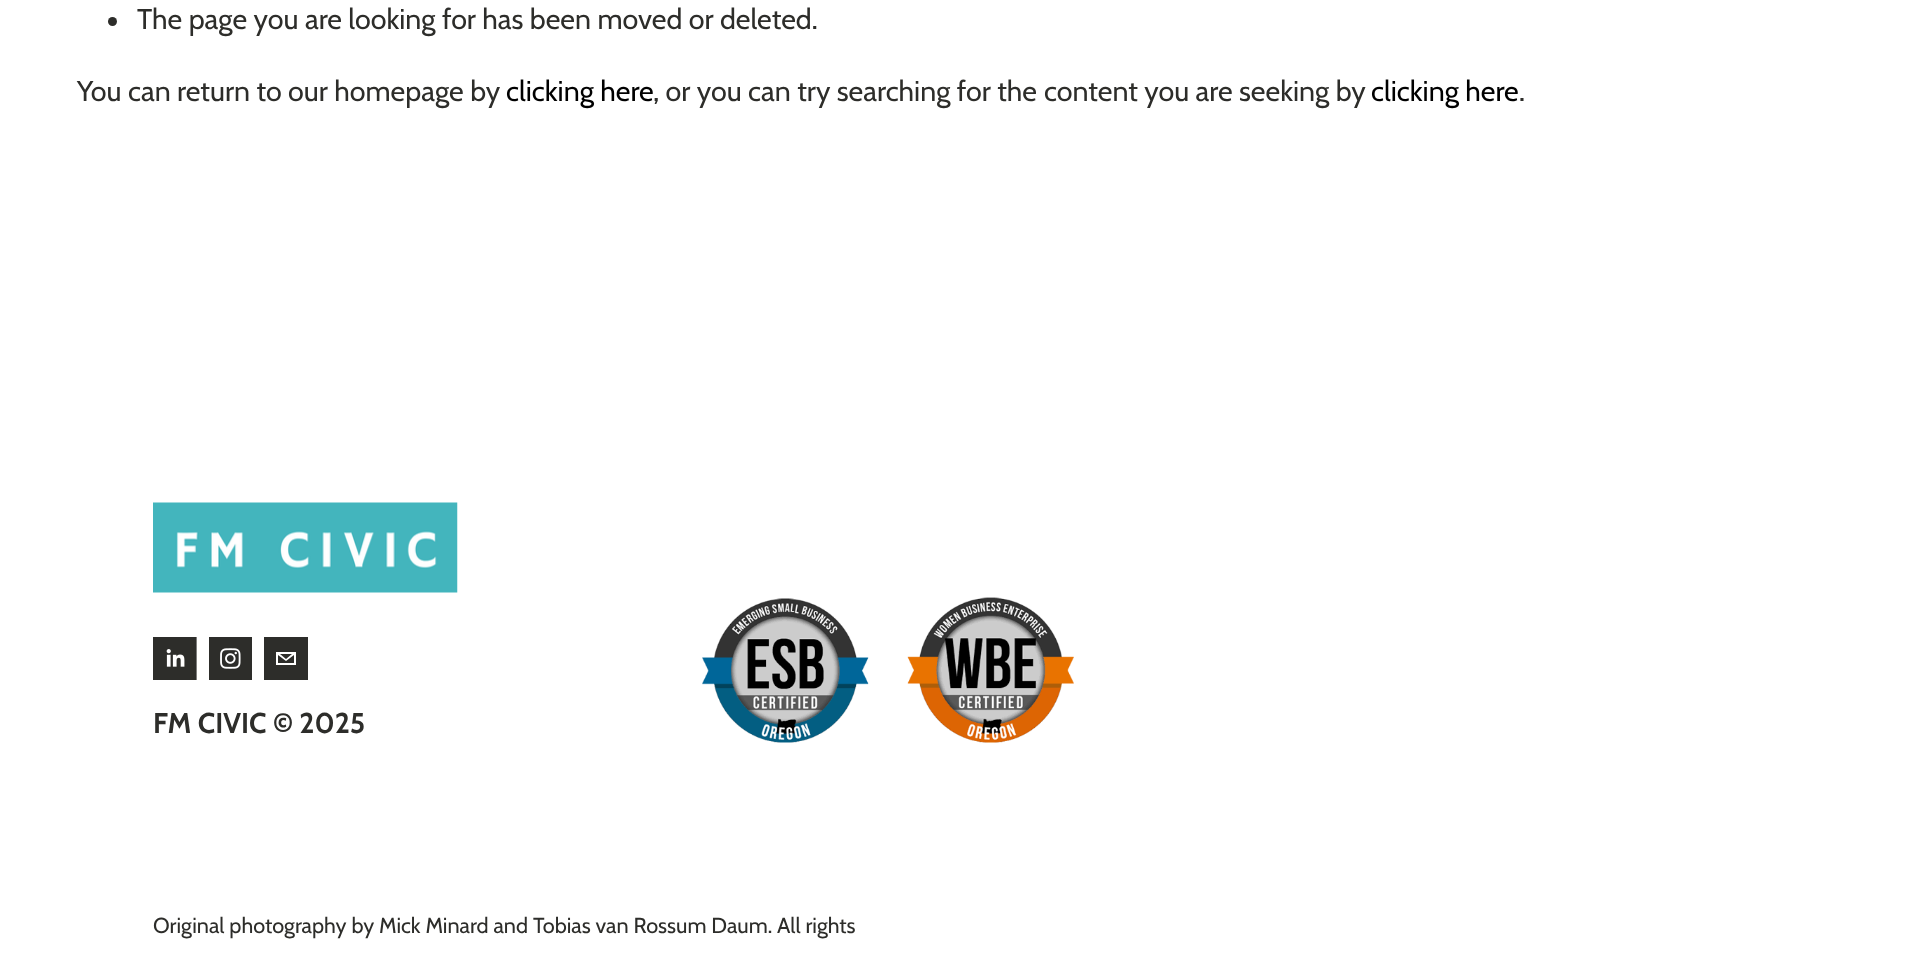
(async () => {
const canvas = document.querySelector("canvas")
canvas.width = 1914
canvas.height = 957
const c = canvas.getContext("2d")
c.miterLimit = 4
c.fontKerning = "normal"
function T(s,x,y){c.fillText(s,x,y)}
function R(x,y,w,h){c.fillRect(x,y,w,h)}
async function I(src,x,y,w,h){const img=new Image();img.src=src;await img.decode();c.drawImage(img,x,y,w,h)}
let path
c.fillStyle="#fff"
R(0,0,1914,957)
c.fillStyle="#2d2d2a"
c.beginPath()
c.arc(112.5,21.5,4.5,0,7)
c.fill()
c.font="28.6px Cabin"
T("The page you are looking for has been moved or deleted.",137,29)
T("You can return to our homepage by",77,101)
c.fillStyle="#000"
T("clicking here",506,101)
c.fillStyle="#2d2d2a"
T(", or you can try searching for the",653,101)
T("content you are seeking by",1044,101)
c.fillStyle="#000"
T("clicking here",1371,101)
c.fillStyle="#2d2d2a"
T(".",1519,101)
await I("1.png",153,502,305,91)
await I("2.png",153,637,44,43)
await I("3.png",209,637,43,43)
path = new Path2D("M292 654h-12l6 5zm2 1l-8 6l-8-6v8h16zm-30-18v43h44v-43zm32 28h-20v-13h20z")
c.fill(path)
await I("4.png",702,598,167,145)
await I("5.png",907,597,167,146)
c.font="bold 28.6px Cabin"
T("FM CIVIC © 2025",153,733)
c.font="21.7px Cabin"
T("Original photography by Mick Minard and Tobias van Rossum Daum. All rights",153,933)
})()
